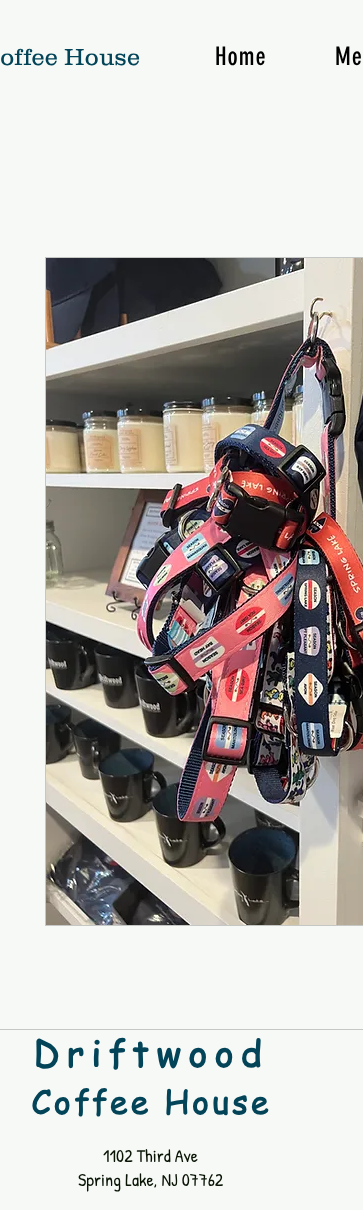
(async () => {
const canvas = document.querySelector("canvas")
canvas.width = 363
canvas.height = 1210
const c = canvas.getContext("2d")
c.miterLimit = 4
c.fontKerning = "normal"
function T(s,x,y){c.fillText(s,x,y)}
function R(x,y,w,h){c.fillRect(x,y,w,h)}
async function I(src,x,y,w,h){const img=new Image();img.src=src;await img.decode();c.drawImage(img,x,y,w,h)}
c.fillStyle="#f6f9f5"
R(0,0,363,1210)
c.font="300 24px 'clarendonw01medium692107'"
c.fillStyle="#034459"
T("offee House",0,65)
c.letterSpacing="1px"
c.font="25px 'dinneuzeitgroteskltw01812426'"
c.fillStyle="#000"
T("Home",215,65)
T("Me",335,65)
c.strokeStyle="#c5c7c4"
c.strokeRect(45.5,257.5,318,668)
await I("1.png",46,258,317,667)
c.fillStyle="#c5c7c4"
R(0,1029,363,1)
c.letterSpacing="7.25px"
c.font="bold 36px 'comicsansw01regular'"
c.fillStyle="#034459"
T("Driftwood",33,1067)
c.letterSpacing="3.25px"
c.font="bold 32px 'comicsansw01regular'"
T("Coffee House",31,1114)
c.letterSpacing="0px"
c.font="18px Patrick Hand"
c.fillStyle="#091405"
T("1102 Third Ave",103,1162)
T("Spring Lake, NJ 07762",78,1186)
})()
